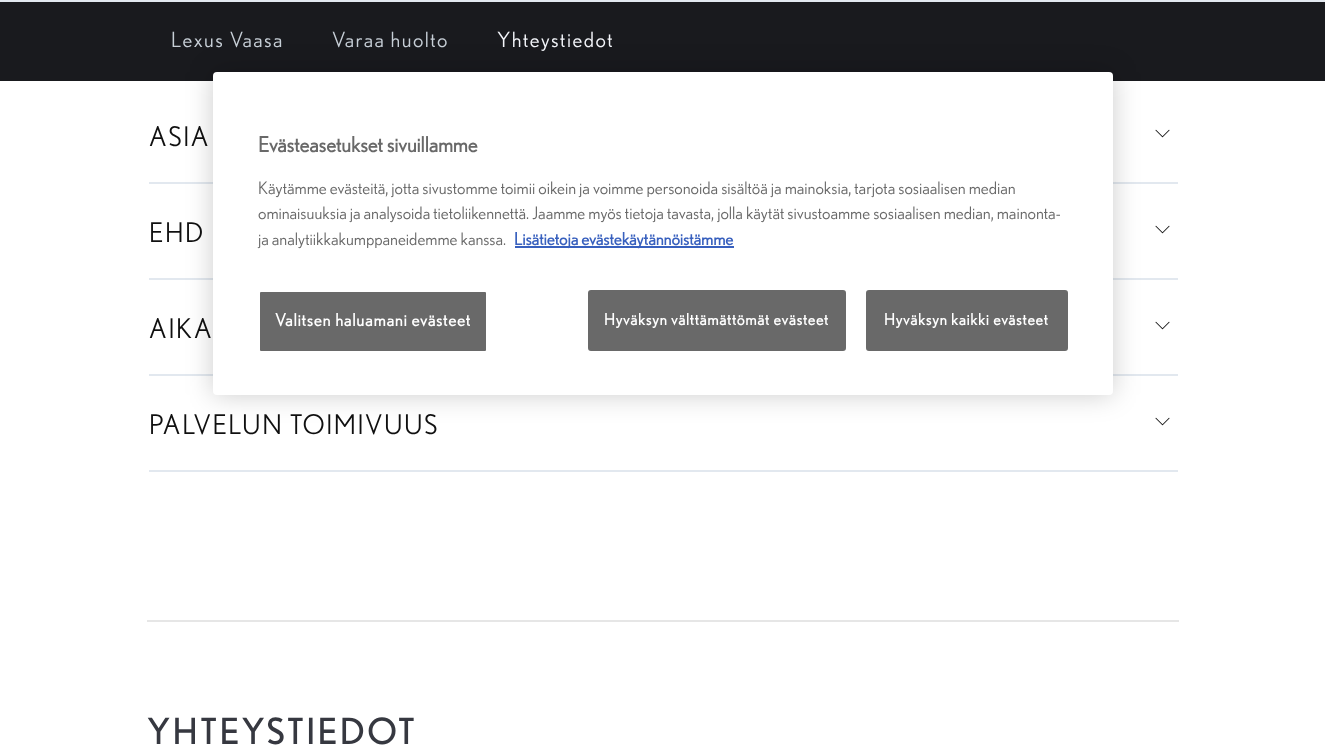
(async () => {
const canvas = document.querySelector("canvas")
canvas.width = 1325
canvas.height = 755
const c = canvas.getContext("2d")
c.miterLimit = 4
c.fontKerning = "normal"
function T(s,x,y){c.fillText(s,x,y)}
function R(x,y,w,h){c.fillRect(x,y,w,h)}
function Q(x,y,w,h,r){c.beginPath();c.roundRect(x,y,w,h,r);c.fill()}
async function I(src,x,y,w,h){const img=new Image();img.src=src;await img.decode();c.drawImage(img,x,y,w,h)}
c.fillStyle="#fff"
R(0,0,1325,755)
c.fillStyle="#e2e8ef"
R(0,0,1325,2)
c.fillStyle="#191a1e"
R(0,2,1325,79)
c.letterSpacing="1.5px"
c.font="21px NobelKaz"
c.fillStyle="#c7cfd7"
T("Lexus Vaasa",171,47)
T("Varaa huolto",332,47)
c.fillStyle="#f4f6fb"
T("Yhteystiedot",497,47)
c.font="27px NobelKaz"
c.fillStyle="#101010"
T("ASIA",149,146)
await I("1.png",1155,129,15,9)
c.fillStyle="#e2e8ef"
R(149,182,1029,2)
c.fillStyle="#101010"
T("EHD",149,242)
await I("1.png",1155,225,15,9)
c.fillStyle="#e2e8ef"
R(149,278,1029,2)
c.fillStyle="#101010"
T("AIKA",149,338)
await I("1.png",1155,321,15,9)
c.fillStyle="#e2e8ef"
R(149,374,1029,2)
c.fillStyle="#101010"
T("PALVELUN TOIMIVUUS",149,434)
await I("1.png",1155,417,15,9)
c.fillStyle="#e2e8ef"
R(149,470,1029,2)
c.fillStyle="#e6e6e6"
R(147,620,1032,2)
c.letterSpacing="2.25px"
c.font="36px 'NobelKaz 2'"
c.fillStyle="#363840"
T("YHTEYSTIEDOT",147,744)
c.fillStyle="#00000033"
c.filter="blur(13.5px)"
c.beginPath()
c.roundRect(213,72,900,323,4)
c.fill()
c.filter="none"
c.fillStyle="#fff"
Q(213,72,900,323,4)
c.letterSpacing="0px"
c.font="bold 21px NobelKaz"
c.fillStyle="#696969"
T("Evästeasetukset sivuillamme",258,152)
c.font="17.05px NobelKaz"
T("Käytämme evästeitä, jotta sivustomme toimii oikein ja voimme personoida sisältöä ja mainoksia, tarjota sosiaalisen median",258,194)
T("ominaisuuksia ja analysoida tietoliikennettä. Jaamme myös tietoja tavasta, jolla käytät sivustoamme sosiaalisen median, mainonta-",258,219)
T("ja analytiikkakumppaneidemme kanssa.",258,245)
c.fillStyle="#3860be"
R(515,246,219,2)
c.font="bold 17.05px NobelKaz"
T("Lisätietoja evästekäytännöistämme",514,245)
c.fillStyle="#696969"
c.beginPath()
c.roundRect(259,291,228,61,2)
c.fill()
c.strokeStyle="#fff"
c.lineWidth=2
c.stroke()
c.letterSpacing="0.85px"
c.fillStyle="#fff"
T("Valitsen haluamani evästeet",275,326)
c.fillStyle="#696969"
c.beginPath()
c.roundRect(589,291,256,59,2)
c.fill()
c.strokeStyle="#696969"
c.stroke()
c.letterSpacing="0.8px"
c.font="bold 15.8px NobelKaz"
c.fillStyle="#fff"
T("Hyväksyn välttämättömät evästeet",604,325)
c.fillStyle="#696969"
c.beginPath()
c.roundRect(867,291,200,59,2)
c.fill()
c.stroke()
c.fillStyle="#fff"
T("Hyväksyn kaikki evästeet",884,325)
})()
